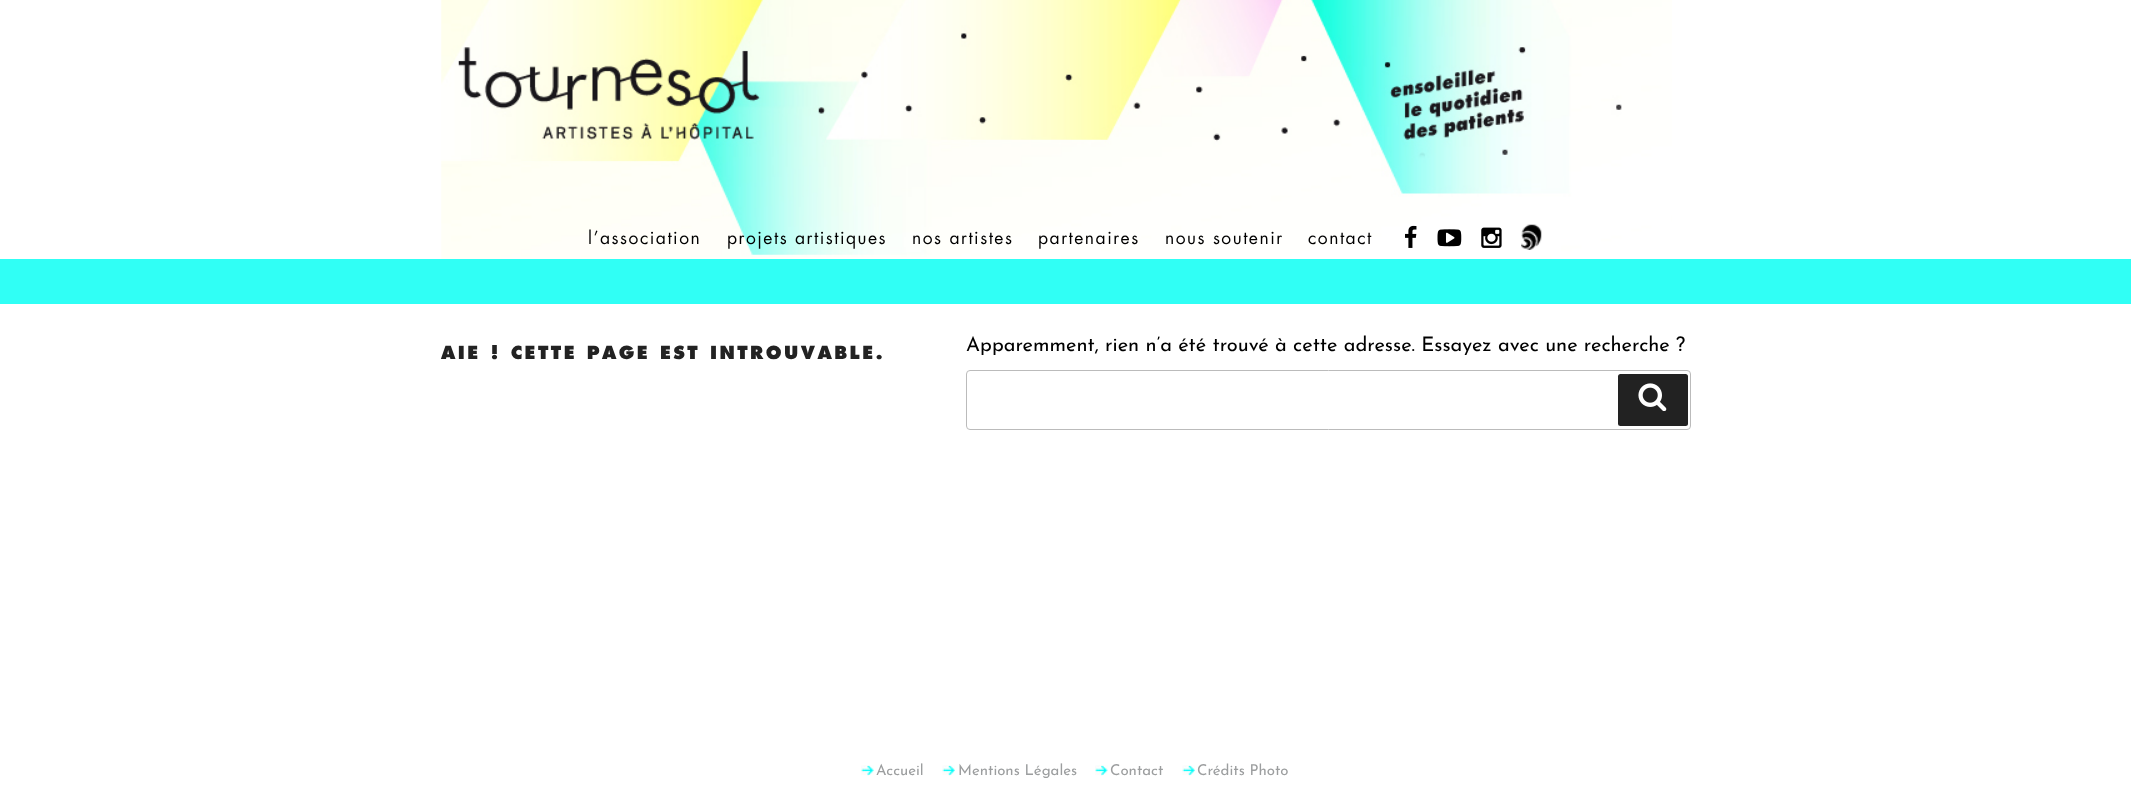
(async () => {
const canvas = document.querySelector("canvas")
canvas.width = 2131
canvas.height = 796
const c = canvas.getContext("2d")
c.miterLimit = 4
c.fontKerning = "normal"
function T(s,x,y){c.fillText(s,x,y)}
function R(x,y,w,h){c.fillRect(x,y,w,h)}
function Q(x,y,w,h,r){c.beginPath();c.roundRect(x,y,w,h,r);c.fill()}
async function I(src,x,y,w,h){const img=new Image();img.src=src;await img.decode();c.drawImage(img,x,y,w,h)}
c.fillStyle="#fff"
R(0,0,2131,796)
await I("1.png",441,0,1231,259)
c.fillStyle="#30fff5"
R(0,259,2131,45)
c.letterSpacing="1.5px"
c.font="17.5px Futura"
c.fillStyle="#000"
T("l’association",588,244)
T("projets artistiques",727,244)
T("nos artistes",912,244)
T("partenaires",1038,244)
T("nous soutenir",1165,244)
T("contact",1308,244)
await I("2.png",1405,225,12,23)
await I("3.png",1437,229,25,18)
await I("4.png",1481,227,21,21)
await I("5.png",1521,224,21,26)
c.letterSpacing="2.45px"
c.font="800 17.5px Futura"
c.fillStyle="#222"
T("AIE ! CETTE PAGE EST INTROUVABLE.",441,359)
c.letterSpacing="0px"
c.font="20px Josefin Sans"
c.fillStyle="#000"
T("Apparemment, rien n’a été trouvé à cette adresse. Essayez avec une recherche ?",966,351)
c.beginPath()
c.roundRect(966.5,370.5,724,59,3.5)
c.strokeStyle="#bbb"
c.stroke()
c.fillStyle="#222"
Q(1618,374,70,52,2.5)
await I("6.png",1638,383,29,28)
await I("7.png",861,765,13,11)
c.font="15px Josefin Sans"
c.fillStyle="#9c9e9f"
T("Accueil",876,775)
await I("8.png",942,765,13,11)
T("Mentions Légales",958,775)
await I("9.png",1095,765,13,11)
T("Contact",1110,775)
await I("10.png",1182,765,13,11)
T("Crédits Photo",1197,775)
})()
